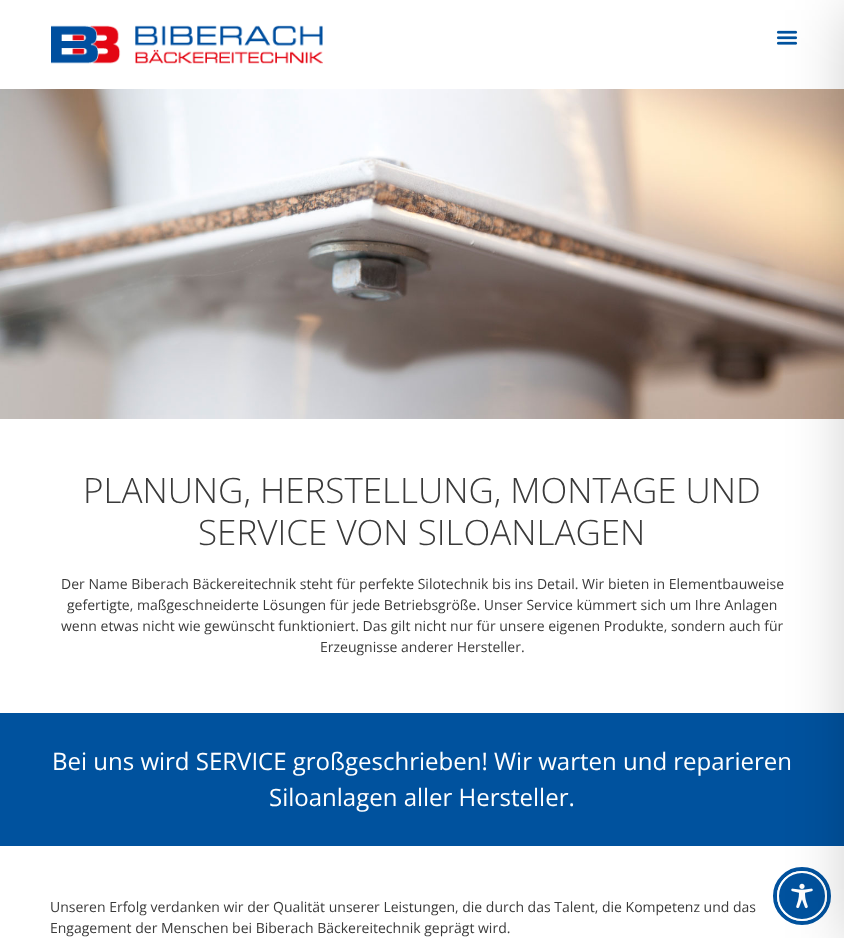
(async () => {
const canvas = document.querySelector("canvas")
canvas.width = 844
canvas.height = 938
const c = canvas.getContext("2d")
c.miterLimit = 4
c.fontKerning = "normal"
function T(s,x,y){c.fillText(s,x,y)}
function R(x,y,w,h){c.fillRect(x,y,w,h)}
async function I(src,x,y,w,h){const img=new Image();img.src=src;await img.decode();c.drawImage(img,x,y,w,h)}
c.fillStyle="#fff"
R(0,0,844,938)
await I("1.png",51,25,272,39)
await I("2.png",776,30,22,15)
await I("3.png",0,89,844,330)
c.fillStyle="#00529e"
R(0,713,844,133)
c.beginPath()
c.arc(802,896,27,0,7)
c.strokeStyle="#01529e"
c.lineWidth=4
c.stroke()
c.fillStyle="#01529e"
c.beginPath()
c.arc(802,896,24,0,7)
c.fill()
c.strokeStyle="#fff"
c.lineWidth=2
c.stroke()
await I("4.png",791,883,22,26)
c.fillStyle="#00000033"
c.filter="blur(30px)"
c.beginPath()
c.rect(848,10,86,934)
c.fill()
c.filter="none"
c.font="300 35px Open Sans"
c.fillStyle="#3a3a3a"
T("PLANUNG, HERSTELLUNG, MONTAGE UND",83,503)
T("SERVICE VON SILOANLAGEN",198,545)
c.font="14px Open Sans"
T("Der Name Biberach Bäckereitechnik steht für perfekte Silotechnik bis ins Detail. Wir bieten in Elementbauweise",61,589)
T("gefertigte, maßgeschneiderte Lösungen für jede Betriebsgröße. Unser Service kümmert sich um Ihre Anlagen",67,610)
T("wenn etwas nicht wie gewünscht funktioniert. Das gilt nicht nur für unsere eigenen Produkte, sondern auch für",61,631)
T("Erzeugnisse anderer Hersteller.",320,652)
c.font="24px Open Sans"
c.fillStyle="#fff"
T("Bei uns wird SERVICE großgeschrieben! Wir warten und reparieren",52,770)
T("Siloanlagen aller Hersteller.",269,806)
c.font="14px Open Sans"
c.fillStyle="#3a3a3a"
T("Unseren Erfolg verdanken wir der Qualität unserer Leistungen, die durch das Talent, die Kompetenz und das",50,912)
T("Engagement der Menschen bei Biberach Bäckereitechnik geprägt wird.",50,933)
})()
